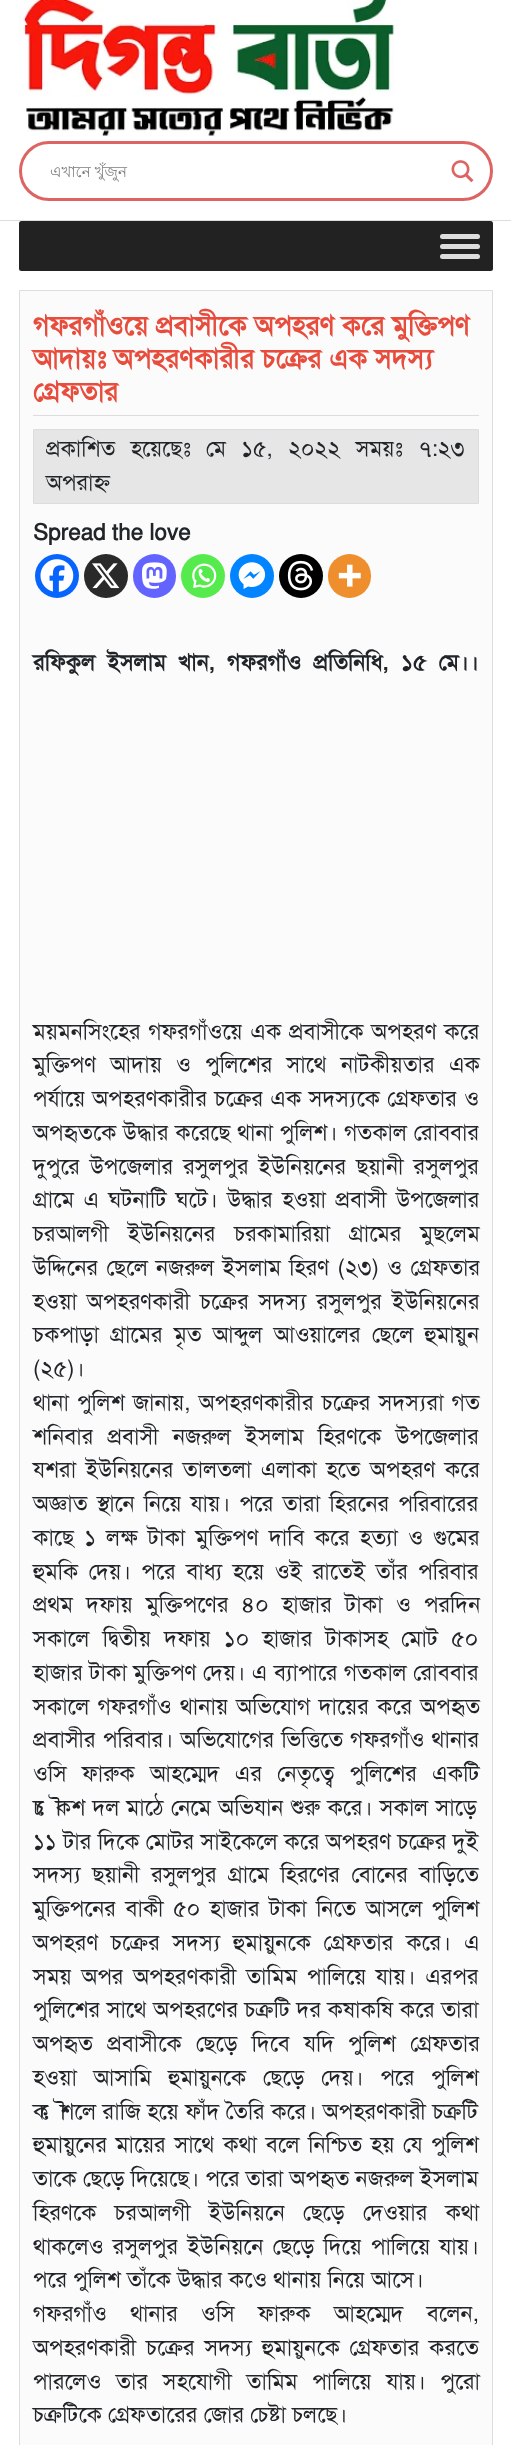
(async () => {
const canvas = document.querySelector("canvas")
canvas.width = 511
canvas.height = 2445
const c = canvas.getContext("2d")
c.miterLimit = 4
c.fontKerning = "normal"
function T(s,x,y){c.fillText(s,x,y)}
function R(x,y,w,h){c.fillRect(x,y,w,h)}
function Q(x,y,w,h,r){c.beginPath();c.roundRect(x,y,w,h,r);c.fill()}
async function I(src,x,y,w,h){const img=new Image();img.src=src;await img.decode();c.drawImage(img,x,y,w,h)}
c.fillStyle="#fff"
R(0,0,511,2445)
c.fillStyle="#ddd"
R(0,220,511,1)
await I("1.png",19,0,376,137)
c.beginPath()
c.roundRect(20.5,142.5,471,57,28.5)
c.strokeStyle="#de6464"
c.lineWidth=3
c.stroke()
c.font="15px Lohit Bengali"
c.fillStyle="#7d7d7d"
T("এখানে খুঁজুন",50,177)
await I("2.png",451,160,23,23)
c.fillStyle="#222"
Q(19,221,474,50,2.5)
c.fillStyle="#ddd"
Q(440,234,40,5,2.5)
Q(440,244,40,5,2.5)
Q(440,254,40,5,2.5)
c.fillStyle="#fbfbfb"
c.beginPath()
c.rect(19.5,290.5,473,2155)
c.fill()
c.strokeStyle="#ddd"
c.lineWidth=1
c.stroke()
c.fillStyle="#ddd"
R(33,415,446,1)
c.font="bold 27.5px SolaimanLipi"
c.fillStyle="#e74c3c"
T("গফরগাঁওয়ে প্রবাসীকে অপহরণ করে মুক্তিপণ",33,335)
T("আদায়ঃ অপহরণকারীর চক্রের এক সদস্য",33,368)
T("গ্রেফতার",33,401)
c.fillStyle="#e6e6e6"
c.beginPath()
c.rect(33.5,429.5,445,74)
c.fill()
c.stroke()
c.wordSpacing="9px"
c.font="22.5px SolaimanLipi"
c.fillStyle="#212529"
T("প্রকাশিত হয়েছেঃ মে ১৫, ২০২২ সময়ঃ ৭:২৩",46,456)
c.wordSpacing="0px"
T("অপরাহ্ণ",46,490)
c.font="bold 22.5px SolaimanLipi"
T("Spread the love",33,540)
c.fillStyle="#0765fe"
c.beginPath()
c.arc(57,576,22,0,7)
c.fill()
await I("3.png",40,559,34,33)
c.fillStyle="#2a2a2a"
c.beginPath()
c.arc(106,576,22,0,7)
c.fill()
await I("4.png",92,563,28,26)
c.fillStyle="#6364ff"
Q(133,554,43,44,21.5)
await I("5.png",142,562,25,27)
c.fillStyle="#55eb4c"
c.beginPath()
c.arc(203,576,22,0,7)
c.fill()
await I("6.png",192,563,25,25)
c.fillStyle="#0084ff"
c.beginPath()
c.arc(252,576,22,0,7)
c.fill()
await I("7.png",238,562,28,27)
c.fillStyle="#000"
c.beginPath()
c.arc(301,576,22,0,7)
c.fill()
await I("8.png",287,560,27,31)
c.fillStyle="#ee8e2d"
Q(328,554,43,44,21.5)
await I("9.png",338,564,23,23)
c.wordSpacing="6px"
c.fillStyle="#212529"
T("রফিকুল ইসলাম খান, গফরগাঁও প্রতিনিধি, ১৫ মে।।",33,670)
c.wordSpacing="1.5px"
c.font="22.5px SolaimanLipi"
T("ময়মনসিংহের গফরগাঁওয়ে এক প্রবাসীকে অপহরণ করে",33,1039)
c.wordSpacing="8px"
T("মুক্তিপণ আদায় ও পুলিশের সাথে নাটকীয়তার এক",33,1072)
c.wordSpacing="1px"
T("পর্যায়ে অপহরণকারীর চক্রের এক সদস্যকে গ্রেফতার ও",33,1106)
c.wordSpacing="0.5px"
T("অপহৃতকে উদ্ধার করেছে থানা পুলিশ। গতকাল রোববার",33,1140)
c.wordSpacing="3.75px"
T("দুপুরে উপজেলার রসুলপুর ইউনিয়নের ছয়ানী রসুলপুর",33,1174)
c.wordSpacing="3.25px"
T("গ্রামে এ ঘটনাটি ঘটে। উদ্ধার হওয়া প্রবাসী উপজেলার",33,1207)
c.wordSpacing="12.5px"
T("চরআলগী ইউনিয়নের চরকামারিয়া গ্রামের মুছলেম",33,1241)
c.wordSpacing="2px"
T("উদ্দিনের ছেলে নজরুল ইসলাম হিরণ (২৩) ও গ্রেফতার",33,1275)
c.wordSpacing="3.75px"
T("হওয়া অপহরণকারী চক্রের সদস্য রসুলপুর ইউনিয়নের",33,1309)
c.wordSpacing="5px"
T("চকপাড়া গ্রামের মৃত আব্দুল আওয়ালের ছেলে হুমায়ুন",33,1342)
c.wordSpacing="0px"
T("(২৫)।",33,1376)
c.wordSpacing="2px"
T("থানা পুলিশ জানায়, অপহরণকারীর চক্রের সদস্যরা গত",33,1410)
c.wordSpacing="8px"
T("শনিবার প্রবাসী নজরুল ইসলাম হিরণকে উপজেলার",33,1444)
c.wordSpacing="3.25px"
T("যশরা ইউনিয়নের তালতলা এলাকা হতে অপহরণ করে",33,1477)
c.wordSpacing="3px"
T("অজ্ঞাত স্থানে নিয়ে যায়। পরে তারা হিরনের পরিবারের",33,1511)
c.wordSpacing="4px"
T("কাছে ১ লক্ষ টাকা মুক্তিপণ দাবি করে হত্যা ও গুমের",33,1545)
c.wordSpacing="4.25px"
T("হুমকি দেয়। পরে বাধ্য হয়ে ওই রাতেই তাঁর পরিবার",33,1579)
c.wordSpacing="7px"
T("প্রথম দফায় মুক্তিপণের ৪০ হাজার টাকা ও পরদিন",33,1612)
T("সকালে দ্বিতীয় দফায় ১০ হাজার টাকাসহ মোট ৫০",33,1646)
c.wordSpacing="0.25px"
T("হাজার টাকা মুক্তিপণ দেয়। এ ব্যাপারে গতকাল রোববার",33,1680)
c.wordSpacing="2px"
T("সকালে গফরগাঁও থানায় অভিযোগ দায়ের করে অপহৃত",33,1714)
c.wordSpacing="1px"
T("প্রবাসীর পরিবার। অভিযোগের ভিত্তিতে গফরগাঁও থানার",33,1747)
c.wordSpacing="9px"
T("ওসি ফারুক আহম্মেদ এর নেতৃত্বে পুলিশের একটি",33,1781)
c.wordSpacing="1px"
T("চৌকশ দল মাঠে নেমে অভিযান শুরু করে। সকাল সাড়ে",33,1815)
c.wordSpacing="0.25px"
T("১১ টার দিকে মোটর সাইকেলে করে অপহরণ চক্রের দুই",33,1849)
c.wordSpacing="5.25px"
T("সদস্য ছয়ানী রসুলপুর গ্রামে হিরণের বোনের বাড়িতে",33,1882)
c.wordSpacing="3.25px"
T("মুক্তিপনের বাকী ৫০ হাজার টাকা নিতে আসলে পুলিশ",33,1916)
c.wordSpacing="6.5px"
T("অপহরণ চক্রের সদস্য হুমায়ুনকে গ্রেফতার করে। এ",33,1950)
c.wordSpacing="3.5px"
T("সময় অপর অপহরণকারী তামিম পালিয়ে যায়। এরপর",33,1984)
c.wordSpacing="0.25px"
T("পুলিশের সাথে অপহরণের চক্রটি দর কষাকষি করে তারা",33,2017)
c.wordSpacing="8px"
T("অপহৃত প্রবাসীকে ছেড়ে দিবে যদি পুলিশ গ্রেফতার",33,2051)
c.wordSpacing="10.5px"
T("হওয়া আসামি হুমায়ুনকে ছেড়ে দেয়। পরে পুলিশ",33,2085)
c.wordSpacing="0.25px"
T("কৌশলে রাজি হয়ে ফাঁদ তৈরি করে। অপহরণকারী চক্রটি",33,2119)
c.wordSpacing="2.5px"
T("হুমায়ুনের মায়ের সাথে কথা বলে নিশ্চিত হয় যে পুলিশ",33,2152)
c.wordSpacing="0px"
T("তাকে ছেড়ে দিয়েছে। পরে তারা অপহৃত নজরুল ইসলাম",33,2186)
c.wordSpacing="12px"
T("হিরণকে চরআলগী ইউনিয়নে ছেড়ে দেওয়ার কথা",33,2220)
c.wordSpacing="3px"
T("থাকলেও রসুলপুর ইউনিয়নে ছেড়ে দিয়ে পালিয়ে যায়।",33,2254)
c.wordSpacing="0px"
T("পরে পুলিশ তাঁকে উদ্ধার কওে থানায় নিয়ে আসে।",33,2287)
c.wordSpacing="17px"
T("গফরগাঁও থানার ওসি ফারুক আহম্মেদ বলেন,",33,2321)
c.wordSpacing="3.5px"
T("অপহরণকারী চক্রের সদস্য হুমায়ুনকে গ্রেফতার করতে",33,2355)
c.wordSpacing="8.5px"
T("পারলেও তার সহযোগী তামিম পালিয়ে যায়। পুরো",33,2389)
c.wordSpacing="0px"
T("চক্রটিকে গ্রেফতারের জোর চেষ্টা চলছে।",33,2422)
})()
